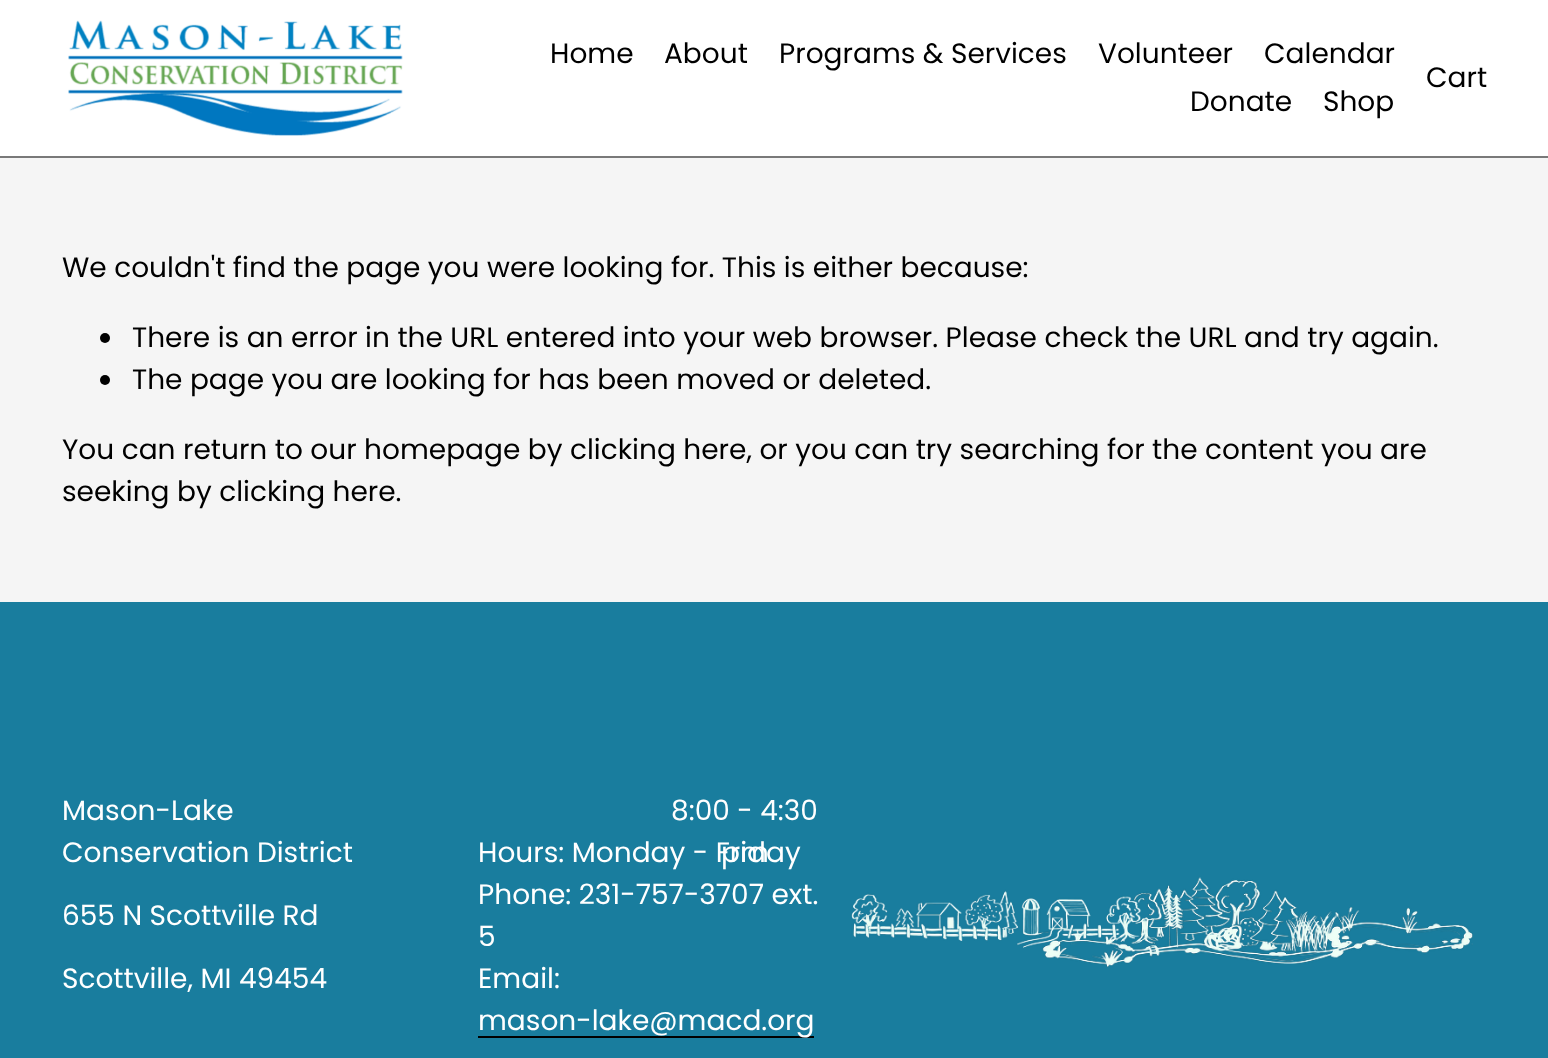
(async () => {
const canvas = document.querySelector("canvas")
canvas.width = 1548
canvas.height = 1058
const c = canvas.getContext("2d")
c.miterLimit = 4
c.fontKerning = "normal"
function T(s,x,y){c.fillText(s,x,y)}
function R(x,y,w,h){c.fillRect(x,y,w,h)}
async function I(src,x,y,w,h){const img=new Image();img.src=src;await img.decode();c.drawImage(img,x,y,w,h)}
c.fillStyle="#f5f5f5"
R(0,0,1548,1058)
c.fillStyle="#fff"
R(0,0,1548,156)
await I("1.png",68,20,335,116)
c.font="28px Poppins"
c.fillStyle="#000"
T("Home",550,63)
T("About",664,63)
T("Programs & Services",779,63)
T("Volunteer",1098,63)
T("Calendar",1264,63)
T("Donate",1190,111)
T("Shop",1323,111)
T("Cart",1426,87)
c.fillStyle="#797979"
R(0,156,1548,2)
c.fillStyle="#000"
T("We couldn't find the page you were looking for. This is either because:",62,277)
c.beginPath()
c.arc(105,338,5,0,7)
c.fill()
T("There is an error in the URL entered into your web browser. Please check the URL and try again.",132,347)
c.beginPath()
c.arc(105,380,5,0,7)
c.fill()
T("The page you are looking for has been moved or deleted.",132,389)
T("You can return to our homepage by clicking here, or you can try searching for the content you are",62,459)
T("seeking by clicking here.",62,501)
c.fillStyle="#197d9e"
R(0,602,1548,456)
c.fillStyle="#fff"
T("Mason-Lake",62,820)
T("Conservation District",62,862)
T("8:00 - 4:30",671,820)
T("pm",721,862)
T("Hours: Monday - Friday",478,862)
T("655 N Scottville Rd",62,925)
T("Phone: 231-757-3707 ext.",478,904)
T("5",478,946)
await I("2.png",851,877,622,90)
T("Scottville, MI 49454",62,988)
T("Email:",478,988)
c.fillStyle="#000"
R(478,1036,336,2)
c.fillStyle="#fff"
T("mason-lake@macd.org",478,1030)
})()
